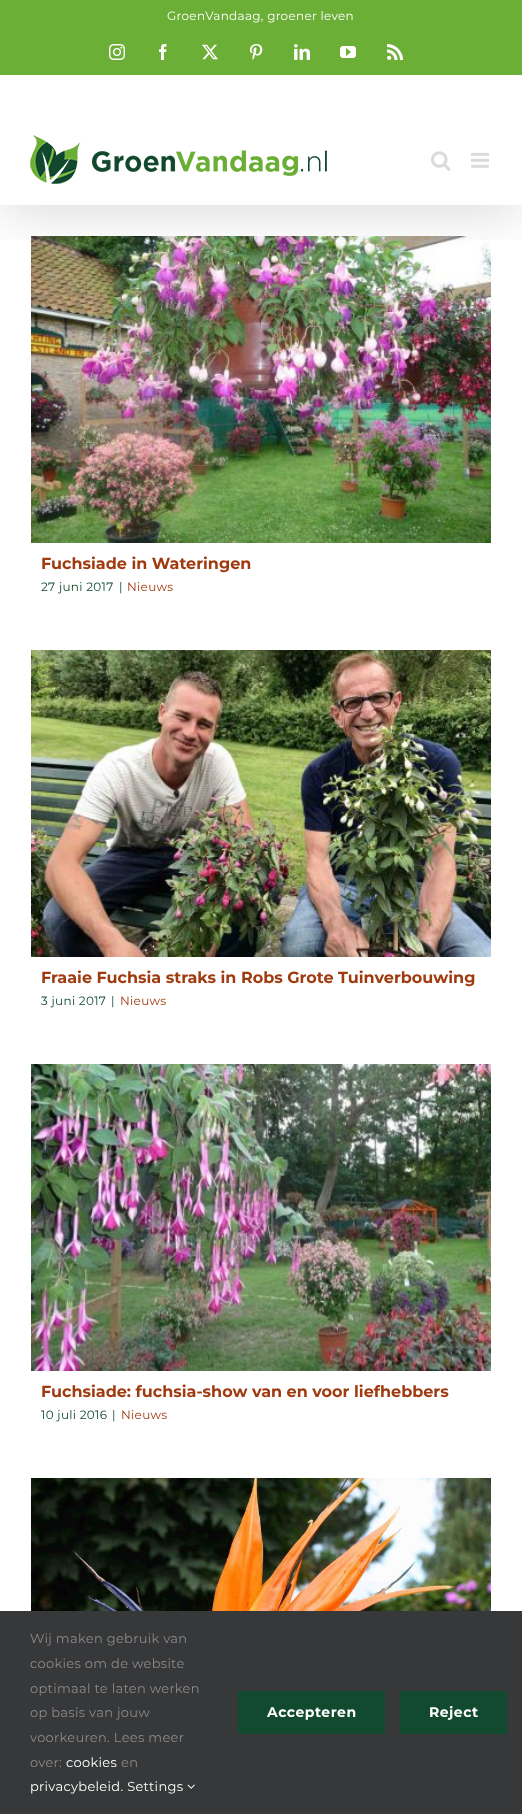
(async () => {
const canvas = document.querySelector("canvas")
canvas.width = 522
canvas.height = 1814
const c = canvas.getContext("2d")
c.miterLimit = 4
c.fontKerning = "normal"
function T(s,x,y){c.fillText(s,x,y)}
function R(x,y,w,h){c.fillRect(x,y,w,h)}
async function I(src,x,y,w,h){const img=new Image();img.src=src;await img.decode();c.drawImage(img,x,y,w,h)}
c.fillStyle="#fff"
R(0,0,522,1814)
await I("11.png",31,236,460,307)
c.save()
c.beginPath()
c.rect(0,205,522,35)
c.clip()
c.fillStyle="#00000024"
c.filter="blur(25px)"
c.beginPath()
c.rect(2,12,518,201)
c.fill()
c.filter="none"
c.restore()
c.fillStyle="#6baf36"
R(0,0,522,75)
c.letterSpacing="0.3px"
c.font="12px Montserrat"
c.fillStyle="#fff"
T("GroenVandaag, groener leven",167,20)
await I("1.png",109,44,16,16)
await I("2.png",159,44,8,16)
await I("3.png",202,44,16,16)
await I("4.png",249,44,14,16)
await I("5.png",294,44,16,16)
await I("6.png",340,46,16,12)
await I("7.png",387,44,16,16)
await I("8.png",30,135,297,49)
await I("9.png",431,151,20,20)
await I("10.png",471,152,18,16)
c.letterSpacing="0px"
c.font="bold 16px Montserrat"
c.fillStyle="#a03b10"
T("Fuchsiade in Wateringen",41,569)
c.letterSpacing="0.3px"
c.font="12px Montserrat"
c.fillStyle="#124a2f"
T("27 juni 2017",41,591)
T("|",119,591)
c.fillStyle="#a03b10"
T("Nieuws",127,591)
await I("12.png",31,650,460,307)
c.letterSpacing="0px"
c.font="bold 16px Montserrat"
T("Fraaie Fuchsia straks in Robs Grote Tuinverbouwing",41,983)
c.letterSpacing="0.3px"
c.font="12px Montserrat"
c.fillStyle="#124a2f"
T("3 juni 2017",41,1005)
T("|",111,1005)
c.fillStyle="#a03b10"
T("Nieuws",120,1005)
await I("13.png",31,1064,460,307)
c.letterSpacing="0px"
c.font="bold 16px Montserrat"
T("Fuchsiade: fuchsia-show van en voor liefhebbers",41,1397)
c.letterSpacing="0.3px"
c.font="12px Montserrat"
c.fillStyle="#124a2f"
T("10 juli 2016",41,1419)
T("|",112,1419)
c.fillStyle="#a03b10"
T("Nieuws",121,1419)
await I("14.png",31,1478,460,133)
c.fillStyle="#363839"
R(0,1611,522,203)
c.font="13px Montserrat"
c.fillStyle="#8c8989"
T("Wij maken gebruik van",30,1643)
T("cookies om de website",30,1668)
T("optimaal te laten werken",30,1693)
T("op basis van jouw",30,1717)
T("voorkeuren. Lees meer",30,1742)
T("over:",30,1767)
c.fillStyle="#fff"
T("cookies",66,1767)
c.fillStyle="#8c8989"
T("en",121,1767)
c.fillStyle="#fff"
T("privacybeleid. Settings",30,1791)
await I("15.png",187,1784,8,5)
c.fillStyle="#124a2f"
R(238,1691,147,43)
c.letterSpacing="0.5px"
c.font="bold 14px Montserrat"
c.fillStyle="#fff"
T("Accepteren",267,1717)
c.fillStyle="#124a2f"
R(400,1691,107,43)
c.fillStyle="#fff"
T("Reject",429,1717)
})()
